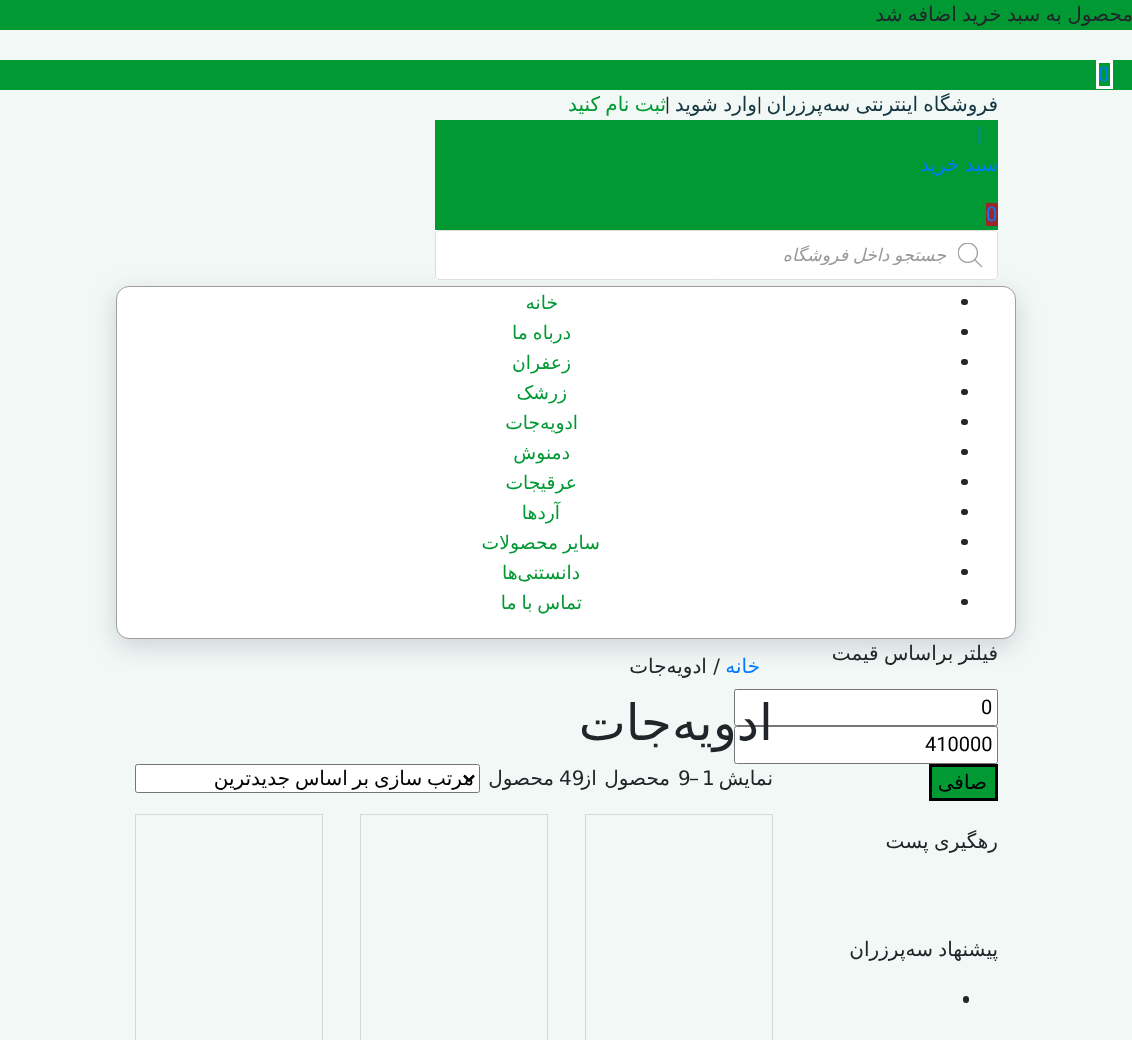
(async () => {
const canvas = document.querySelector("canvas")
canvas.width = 1132
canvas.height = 1040
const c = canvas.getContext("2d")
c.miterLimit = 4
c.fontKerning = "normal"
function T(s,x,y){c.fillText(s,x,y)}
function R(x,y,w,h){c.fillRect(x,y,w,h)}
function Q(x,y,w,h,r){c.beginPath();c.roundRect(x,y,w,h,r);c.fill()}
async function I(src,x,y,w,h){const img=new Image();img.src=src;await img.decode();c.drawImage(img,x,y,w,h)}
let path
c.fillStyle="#f2f8f5"
R(0,0,1132,1040)
c.fillStyle="#093"
R(0,0,1132,30)
c.wordSpacing="-1px"
c.direction="rtl"
c.font="20px DejaVu Sans"
c.fillStyle="#212529"
T("محصول به سبد خرید اضافه شد",1133,21)
c.fillStyle="#093"
R(0,60,1132,30)
c.strokeStyle="#fff"
c.lineWidth=3
c.strokeRect(1097.5,61.5,14,26)
c.wordSpacing="0px"
c.direction="ltr"
c.font="20px Roboto"
c.fillStyle="#007bff"
T("0",1098,81)
c.wordSpacing="-1px"
c.direction="rtl"
c.font="20px DejaVu Sans"
c.fillStyle="#143641"
T("فروشگاه اینترنتی سه‌پرزران",998,111)
T("وارد شوید",757,111)
c.wordSpacing="0px"
c.direction="ltr"
c.font="20px Roboto"
c.fillStyle="#212529"
T("|",665,111)
c.wordSpacing="-1px"
c.direction="rtl"
c.font="20px DejaVu Sans"
c.fillStyle="#093"
T("ثبت نام کنید",666,111)
c.wordSpacing="0px"
c.direction="ltr"
c.font="20px Roboto"
c.fillStyle="#212529"
T("|",757,111)
c.fillStyle="#093"
R(435,120,563,110)
c.fillStyle="#007bff"
T("|",977,141)
c.wordSpacing="-1px"
c.direction="rtl"
c.font="20px DejaVu Sans"
T("سبد خرید",998,171)
c.fillStyle="#9d262a"
R(986,203,12,23)
c.wordSpacing="0px"
c.direction="ltr"
c.font="20px Roboto"
c.fillStyle="#007bff"
T("0",986,221)
c.fillStyle="#a8acb980"
c.filter="blur(12.5px)"
c.beginPath()
c.roundRect(116,294,900,352,13)
c.fill()
c.filter="none"
c.fillStyle="#fff"
R(435,230,563,50)
c.beginPath()
c.roundRect(435.5,230.5,562,49,3.5)
c.strokeStyle="#ddd"
c.lineWidth=1
c.stroke()
await I("1.png",958,243,25,25)
c.save()
c.beginPath()
c.rect(455,245,491,20)
c.clip()
c.wordSpacing="-1px"
c.direction="rtl"
c.font="italic 17.5px DejaVu Sans"
c.fillStyle="#999"
T("جستجو داخل فروشگاه",946,261)
c.restore()
c.beginPath()
c.roundRect(116.5,286.5,899,352,12.5)
c.fill()
c.strokeStyle="#9f9f9f"
c.stroke()
c.fillStyle="#212529"
Q(961,299,7,6,3)
c.direction="rtl"
c.font="18.75px DejaVu Sans"
c.fillStyle="#093"
T("خانه",558,309)
c.fillStyle="#212529"
Q(961,329,7,6,3)
c.wordSpacing="-1px"
c.fillStyle="#093"
T("درباه ما",571,339)
c.fillStyle="#212529"
Q(961,359,7,6,3)
c.wordSpacing="0px"
c.fillStyle="#093"
T("زعفران",571,369)
c.fillStyle="#212529"
Q(961,389,7,6,3)
c.fillStyle="#093"
T("زرشک",567,399)
c.fillStyle="#212529"
Q(961,419,7,6,3)
c.fillStyle="#093"
T("ادویه‌جات",578,429)
c.fillStyle="#212529"
Q(961,449,7,6,3)
c.fillStyle="#093"
T("دمنوش",570,459)
c.fillStyle="#212529"
Q(961,479,7,6,3)
c.fillStyle="#093"
T("عرقیجات",577,489)
c.fillStyle="#212529"
Q(961,509,7,6,3)
c.fillStyle="#093"
T("آردها",560,519)
c.fillStyle="#212529"
Q(961,539,7,6,3)
c.wordSpacing="-1px"
c.fillStyle="#093"
T("سایر محصولات",600,549)
c.fillStyle="#212529"
Q(961,569,7,6,3)
c.wordSpacing="0px"
c.fillStyle="#093"
T("دانستنی‌ها",580,579)
c.fillStyle="#212529"
Q(961,599,7,6,3)
c.wordSpacing="-1px"
c.fillStyle="#093"
T("تماس با ما",582,609)
c.font="20px DejaVu Sans"
c.fillStyle="#212529"
T("فیلتر براساس قیمت",998,660)
c.fillStyle="#fff"
c.beginPath()
c.roundRect(734.5,689.5,263,36,2)
c.fill()
c.strokeStyle="#767676"
c.stroke()
c.wordSpacing="0px"
c.direction="ltr"
c.font="20px Roboto"
c.fillStyle="#000"
T("0",981,714)
c.fillStyle="#fff"
c.beginPath()
c.roundRect(734.5,726.5,263,37,2)
c.fill()
c.stroke()
c.fillStyle="#000"
T("410000",925,751)
c.fillStyle="#093"
c.beginPath()
c.rect(930.5,765.5,66,34)
c.fill()
c.strokeStyle="#000"
c.lineWidth=3
c.stroke()
c.direction="rtl"
c.font="20px DejaVu Sans"
c.fillStyle="#000"
T("صافی",987,789)
c.wordSpacing="-1px"
c.fillStyle="#212529"
T("رهگیری پست",998,848)
T("پیشنهاد سه‌پرزران",998,956)
Q(963,996,6,7,3)
c.wordSpacing="0px"
c.fillStyle="#007bff"
T("خانه",760,673)
c.fillStyle="#212529"
T("/ ادویه‌جات",720,673)
c.font="50px DejaVu Sans"
T("ادویه‌جات",773,740)
c.font="20px DejaVu Sans"
T("نمایش",773,785)
c.direction="ltr"
T("1",702,785)
T("–",689,785)
T("9",678,785)
T("49",559,785)
c.wordSpacing="1px"
c.direction="rtl"
T("محصول از",670,785)
c.wordSpacing="0px"
T("محصول",554,785)
c.fillStyle="#fff"
c.beginPath()
c.roundRect(135.5,764.5,344,28,2)
c.fill()
c.strokeStyle="#767676"
c.lineWidth=1
c.stroke()
path = new Path2D("M464 775.5l5 5l5-5")
c.strokeStyle="#000"
c.lineWidth=2.5
c.stroke(path)
c.save()
c.beginPath()
c.rect(156,765,318,26)
c.clip()
c.wordSpacing="-1.5px"
c.fillStyle="#000"
T("مرتب سازی بر اساس جدیدترین",474,785)
c.restore()
c.strokeStyle="#d7d7d7"
c.lineWidth=1
c.strokeRect(585.5,814.5,187,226)
c.strokeRect(360.5,814.5,187,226)
c.strokeRect(135.5,814.5,187,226)
})()
